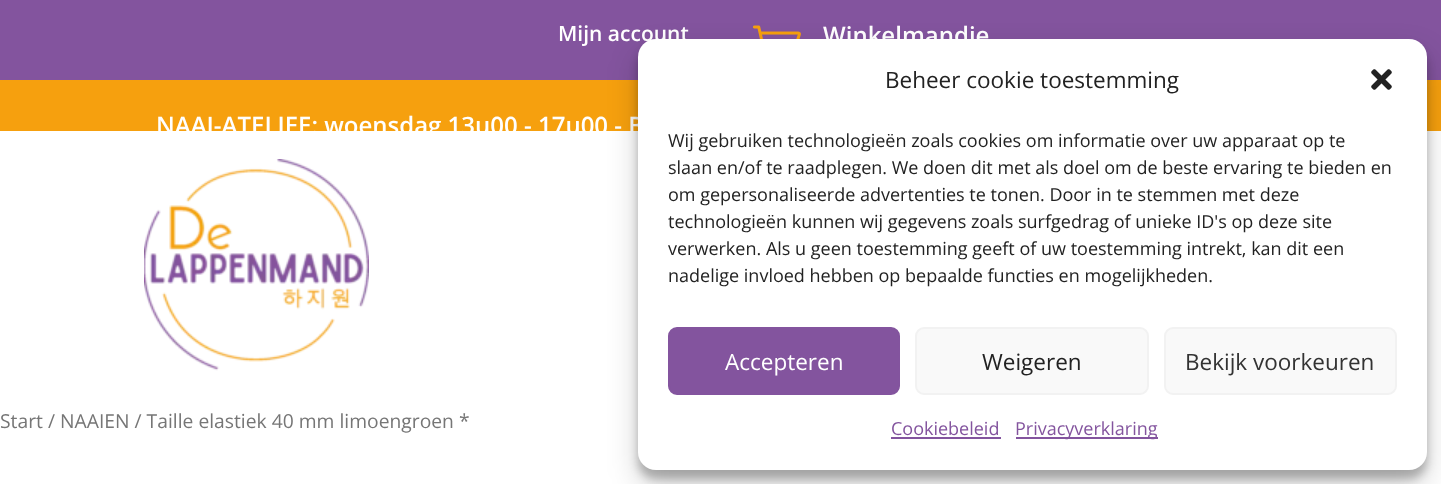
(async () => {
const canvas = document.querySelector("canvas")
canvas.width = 1441
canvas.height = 484
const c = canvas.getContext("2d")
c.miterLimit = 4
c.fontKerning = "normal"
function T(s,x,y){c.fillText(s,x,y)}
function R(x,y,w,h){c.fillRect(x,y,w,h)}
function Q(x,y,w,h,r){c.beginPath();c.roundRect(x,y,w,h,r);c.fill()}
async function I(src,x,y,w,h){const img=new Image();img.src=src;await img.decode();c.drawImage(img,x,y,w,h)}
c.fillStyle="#fff"
R(0,0,1441,484)
c.fillStyle="#83549e"
R(0,0,1441,80)
c.font="600 21px Open Sans"
c.fillStyle="#fff"
T("Mijn account",558,41)
await I("1.png",753,25,48,14)
c.font="600 24px Open Sans"
T("Winkelmandje",823,44)
c.fillStyle="#f6a00e"
R(0,80,1441,51)
c.fillStyle="#fff"
T("NAAI-ATELJEE: woensdag 13u00 - 17u00 - B",156,134)
await I("2.png",144,159,225,212)
c.font="19.3px Open Sans"
c.fillStyle="#767676"
T("Start / NAAIEN / Taille elastiek 40 mm limoengroen *",0,428)
c.fillStyle="#0000003b"
c.filter="blur(4.5px)"
c.beginPath()
c.roundRect(638,48,789,431,18)
c.fill()
c.filter="none"
c.fillStyle="#00000030"
c.filter="blur(15px)"
c.beginPath()
c.roundRect(638,54,789,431,18)
c.fill()
c.filter="none"
c.fillStyle="#fff"
Q(638,39,789,431,18)
c.font="22.5px Open Sans"
c.fillStyle="#222"
T("Beheer cookie toestemming",885,88)
await I("3.png",1371,69,21,21)
c.font="18px Open Sans"
T("Wij gebruiken technologieën zoals cookies om informatie over uw apparaat op te",668,147)
T("slaan en/of te raadplegen. We doen dit met als doel om de beste ervaring te bieden en",668,174)
T("om gepersonaliseerde advertenties te tonen. Door in te stemmen met deze",668,201)
T("technologieën kunnen wij gegevens zoals surfgedrag of unieke ID's op deze site",668,228)
T("verwerken. Als u geen toestemming geeft of uw toestemming intrekt, kan dit een",668,255)
T("nadelige invloed hebben op bepaalde functies en mogelijkheden.",668,282)
c.fillStyle="#83549e"
c.beginPath()
c.roundRect(669,328,230,66,8)
c.fill()
c.strokeStyle="#83549e"
c.lineWidth=2
c.stroke()
c.font="22.5px Open Sans"
c.fillStyle="#fff"
T("Accepteren",725,370)
c.fillStyle="#f9f9f9"
c.beginPath()
c.roundRect(916,328,232,66,8)
c.fill()
c.strokeStyle="#f2f2f2"
c.stroke()
c.fillStyle="#222"
T("Weigeren",982,370)
c.fillStyle="#f9f9f9"
c.beginPath()
c.roundRect(1165,328,231,66,8)
c.fill()
c.stroke()
c.fillStyle="#333"
T("Bekijk voorkeuren",1185,370)
c.font="18px Open Sans"
c.fillStyle="#83549e"
T("Cookiebeleid",891,435)
R(891,437,110,2)
R(1016,437,142,2)
T("Privacyverklaring",1015,435)
})()
